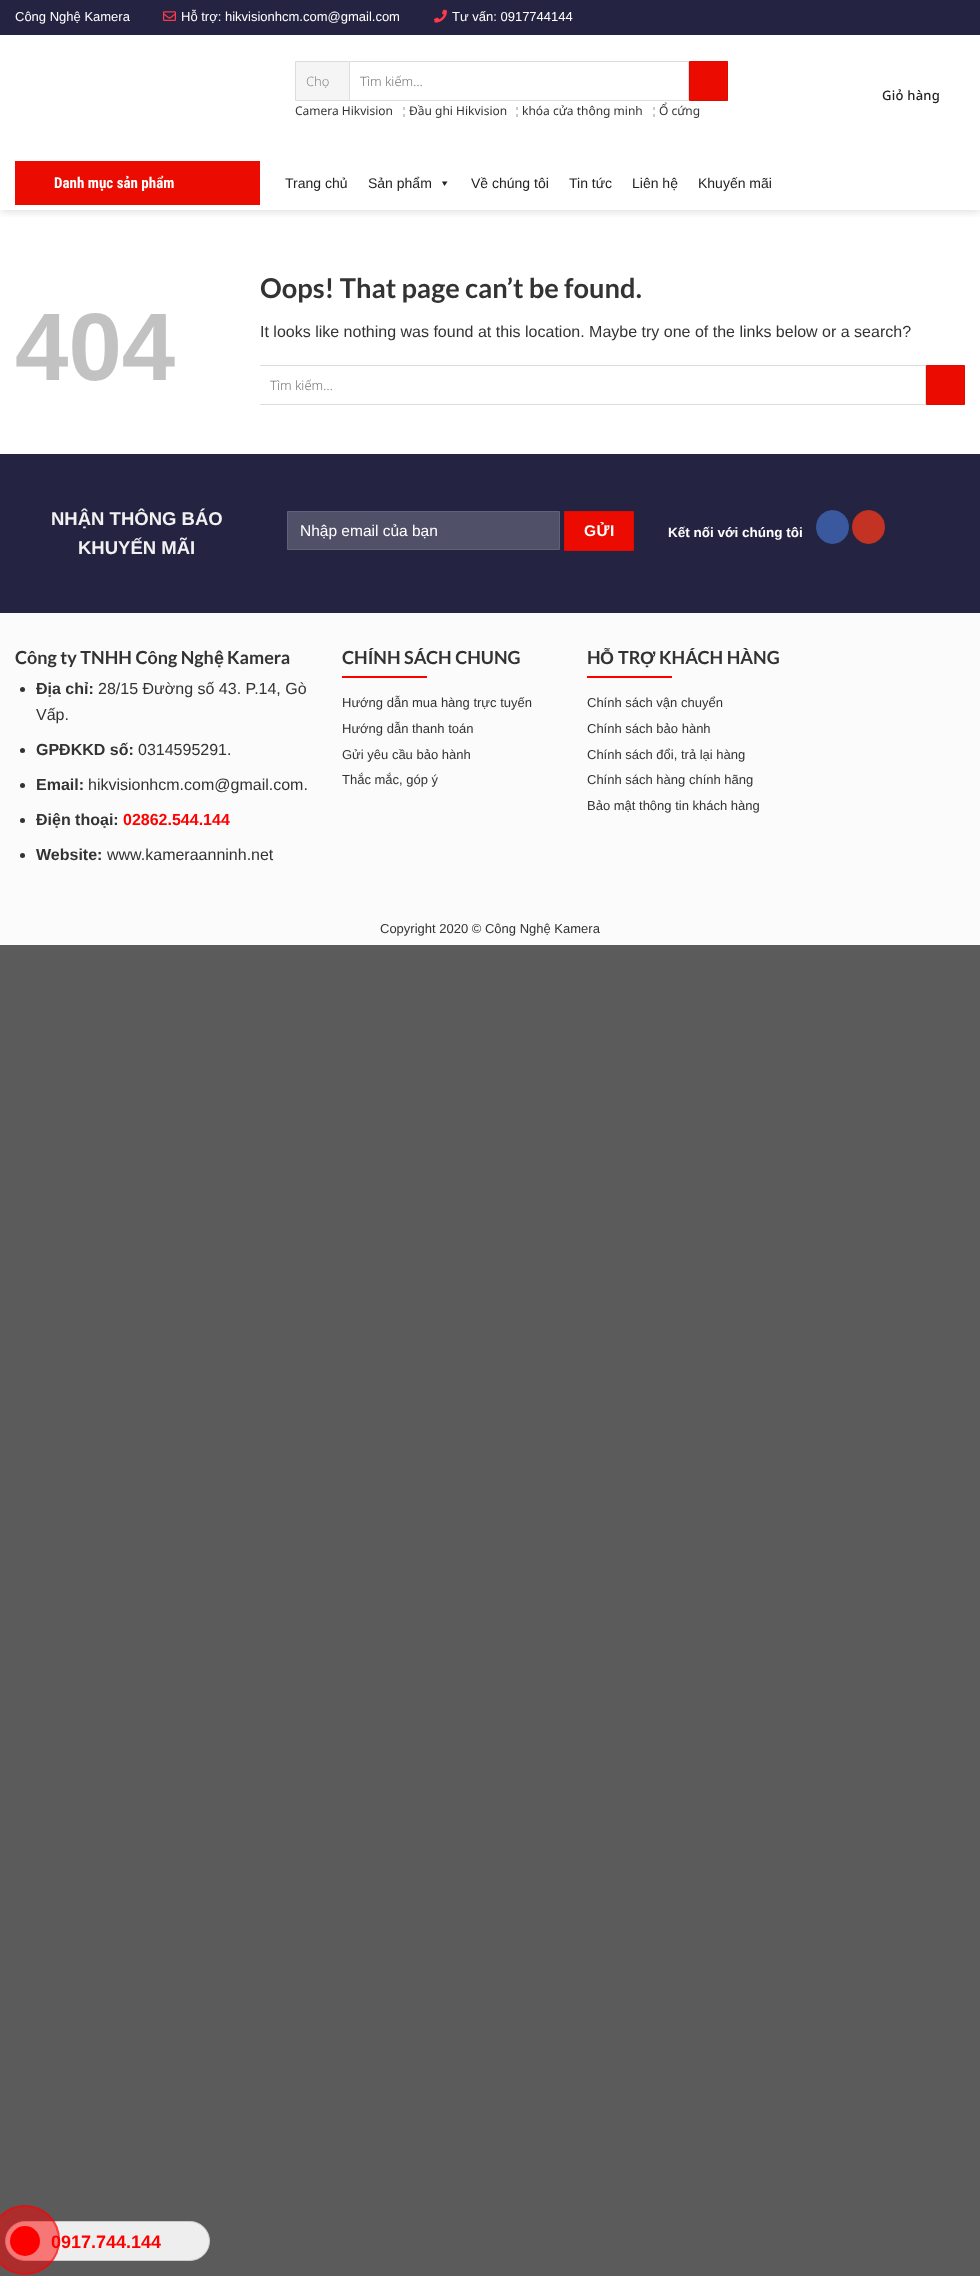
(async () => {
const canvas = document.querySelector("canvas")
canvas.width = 980
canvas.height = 2276
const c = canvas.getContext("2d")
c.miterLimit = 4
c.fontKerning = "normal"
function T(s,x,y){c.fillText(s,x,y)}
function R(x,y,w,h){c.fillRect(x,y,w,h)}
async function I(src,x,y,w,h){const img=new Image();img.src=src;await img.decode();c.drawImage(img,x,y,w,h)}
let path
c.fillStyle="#5b5b5b"
R(0,0,980,2276)
c.fillStyle="#fff"
R(0,35,980,419)
c.save()
c.beginPath()
c.rect(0,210,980,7)
c.clip()
c.fillStyle="#00000026"
c.filter="blur(5px)"
c.beginPath()
c.rect(1,1,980,210)
c.fill()
c.filter="none"
c.restore()
c.fillStyle="#242442"
R(0,0,980,35)
c.font="13px Liberation Sans"
c.fillStyle="#fff"
T("Công Nghệ Kamera",15,21)
await I("1.png",163,11,13,10)
T("Hỗ trợ: hikvisionhcm.com@gmail.com",181,21)
await I("2.png",434,9,13,14)
T("Tư vấn: 0917744144",452,21)
c.fillStyle="#f5f5f5"
c.beginPath()
c.rect(295.5,61.5,54,39)
c.fill()
c.strokeStyle="#ddd"
c.stroke()
c.font="300 13px Noto Sans"
c.fillStyle="#898989"
T("Chọ",306,86)
c.fillStyle="#ddd"
R(350,61,339,1)
R(688,61,1,40)
R(350,100,339,1)
c.fillStyle="#757575"
T("Tìm kiếm…",360,86)
c.fillStyle="#eb0b00"
c.beginPath()
c.rect(689.5,61.5,38,39)
c.fill()
c.strokeStyle="#df0a00"
c.stroke()
c.font="12px Noto Sans"
c.fillStyle="#333"
T("Camera Hikvision",295,115)
path = new Path2D("M404.5 107v3m0 4v3")
c.strokeStyle="#cacaca"
c.stroke(path)
c.fillStyle="#cacaca"
R(403,116,2,1)
path = new Path2D("M403.5 107v3m0 4v3")
c.stroke(path)
c.fillStyle="#333"
T("Đầu ghi Hikvision",409,115)
path = new Path2D("M517.5 107v3m0 4v3")
c.stroke(path)
c.fillStyle="#cacaca"
R(516,116,2,1)
path = new Path2D("M516.5 107v3m0 4v3")
c.stroke(path)
c.fillStyle="#333"
T("khóa cửa thông minh",522,115)
path = new Path2D("M654.5 107v3m0 4v3")
c.stroke(path)
c.fillStyle="#cacaca"
R(653,116,2,1)
path = new Path2D("M653.5 107v3m0 4v3")
c.stroke(path)
c.fillStyle="#333"
T("Ổ cứng",659,115)
c.letterSpacing="0.25px"
c.font="500 13px Noto Sans"
c.fillStyle="#222"
T("Giỏ hàng",882,100)
c.fillStyle="#eb0b00"
R(15,161,245,44)
c.letterSpacing="0px"
c.font="bold 15px Roboto Condensed"
c.fillStyle="#fff"
T("Danh mục sản phẩm",54,188)
c.font="14px Liberation Sans"
c.fillStyle="#222"
T("Trang chủ",285,188)
T("Sản phẩm",368,188)
path = new Path2D("M447.5 181.5l-3 4.5l-2.5-4.5z")
c.fill(path)
T("Về chúng tôi",471,188)
T("Tin tức",569,188)
T("Liên hệ",632,188)
T("Khuyến mãi",698,188)
c.font="bold 96px Liberation Sans"
c.fillStyle="#c2c2c2"
T("404",15,380)
c.font="bold 27.25px Lato"
c.fillStyle="#333"
T("Oops! That page can’t be found.",260,298)
c.font="16px Liberation Sans"
T("It looks like nothing was found at this location. Maybe try one of the links below or a search?",260,337)
c.fillStyle="#ddd"
R(260,365,666,1)
R(925,365,1,40)
R(260,404,666,1)
c.font="300 13px Noto Sans"
c.fillStyle="#757575"
T("Tìm kiếm…",270,390)
c.fillStyle="#eb0b00"
c.beginPath()
c.rect(926.5,365.5,38,39)
c.fill()
c.strokeStyle="#df0a00"
c.stroke()
c.fillStyle="#242442"
R(0,454,980,159)
c.font="bold 18.5px Liberation Sans"
c.fillStyle="#f1f1f1"
T("NHẬN THÔNG BÁO",51,525)
T("KHUYẾN MÃI",78,554)
c.fillStyle="#505068"
c.beginPath()
c.rect(287.5,511.5,272,38)
c.fill()
c.strokeStyle="#606076"
c.stroke()
c.font="15.5px Liberation Sans"
c.fillStyle="#fff"
T("Nhập email của bạn",300,536)
c.fillStyle="#eb0b00"
c.beginPath()
c.rect(564.5,511.5,69,39)
c.fill()
c.strokeStyle="#df0a00"
c.stroke()
c.letterSpacing="0.5px"
c.font="bold 15.5px Liberation Sans"
c.fillStyle="#fff"
T("GỬI",584,536)
c.letterSpacing="0px"
c.font="bold 13.5px Liberation Sans"
T("Kết nối với chúng tôi",668,537)
c.fillStyle="#3a589d"
c.beginPath()
c.roundRect(816.5,510.5,32,33,16)
c.fill()
c.strokeStyle="#3a589d"
c.stroke()
c.fillStyle="#c33223"
c.beginPath()
c.roundRect(852.5,510.5,32,33,16)
c.fill()
c.strokeStyle="#c33223"
c.stroke()
c.fillStyle="#fbfbfb"
R(0,613,980,332)
c.font="bold 18px Lato"
c.fillStyle="#333"
T("Công ty TNHH Công Ngh",15,664)
c.font="bold 18px Liberation Sans"
T("ệ",214,664)
c.font="bold 18px Lato"
T("Kamera",227,664)
c.beginPath()
c.arc(22.5,689.5,2.5,0,7)
c.fill()
c.font="bold 16px Liberation Sans"
T("Địa chỉ:",36,694)
c.font="16px Liberation Sans"
T("28/15 Đường số 43. P.14, Gò",98,694)
T("Vấp.",36,720)
c.beginPath()
c.arc(22.5,750.5,2.5,0,7)
c.fill()
c.font="bold 16px Liberation Sans"
T("GPĐKKD số:",36,755)
c.font="16px Liberation Sans"
T("0314595291.",138,755)
c.beginPath()
c.arc(22.5,785.5,2.5,0,7)
c.fill()
c.font="bold 16px Liberation Sans"
T("Email:",36,790)
c.font="16px Liberation Sans"
T("hikvisionhcm.com@gmail.com.",88,790)
c.beginPath()
c.arc(22.5,820.5,2.5,0,7)
c.fill()
c.font="bold 16px Liberation Sans"
T("Điện thoại:",36,825)
c.fillStyle="#f00"
T("02862.544.144",123,825)
c.fillStyle="#333"
c.beginPath()
c.arc(22.5,855.5,2.5,0,7)
c.fill()
T("Website:",36,860)
c.font="16px Liberation Sans"
T("www.kameraanninh.net",107,860)
c.font="bold 18px Lato"
T("CHÍNH SÁCH CHUNG",342,664)
c.fillStyle="#f00"
R(342,676,85,2)
c.font="13px Liberation Sans"
c.fillStyle="#333"
T("Hướng dẫn mua hàng trực tuyến",342,707)
T("Hướng dẫn thanh toán",342,733)
T("Gửi yêu cầu bảo hành",342,759)
T("Thắc mắc, góp ý",342,784)
c.font="bold 18px Lato"
T("H",587,664)
c.font="bold 18px Liberation Sans"
T("Ỗ",600,664)
c.font="bold 18px Lato"
T("TR",618,664)
c.font="bold 18px Liberation Sans"
T("Ợ",640,664)
c.font="bold 18px Lato"
T("KHÁCH HÀNG",659,664)
c.fillStyle="#f00"
R(587,676,85,2)
c.font="13px Liberation Sans"
c.fillStyle="#333"
T("Chính sách vận chuyển",587,707)
T("Chính sách bảo hành",587,733)
T("Chính sách đổi, trả lại hàng",587,759)
T("Chính sách hàng chính hãng",587,784)
T("Bảo mật thông tin khách hàng",587,810)
T("Copyright 2020 © Công Nghệ Kamera",380,933)
c.fillStyle="#eee"
c.beginPath()
c.roundRect(5.5,2221.5,204,39,19.5)
c.fill()
c.strokeStyle="#ccc"
c.stroke()
c.font="bold 18px Liberation Sans"
c.fillStyle="#f00"
T("0917.744.144",51,2248)
c.fillStyle="#ff000080"
c.beginPath()
c.arc(25,2240,35,0,7)
c.fill()
c.beginPath()
c.arc(25,2240,34,0,7)
c.strokeStyle="#ff000080"
c.lineWidth=2
c.stroke()
c.fillStyle="#f00"
c.beginPath()
c.arc(25,2241,15,0,7)
c.fill()
})()
